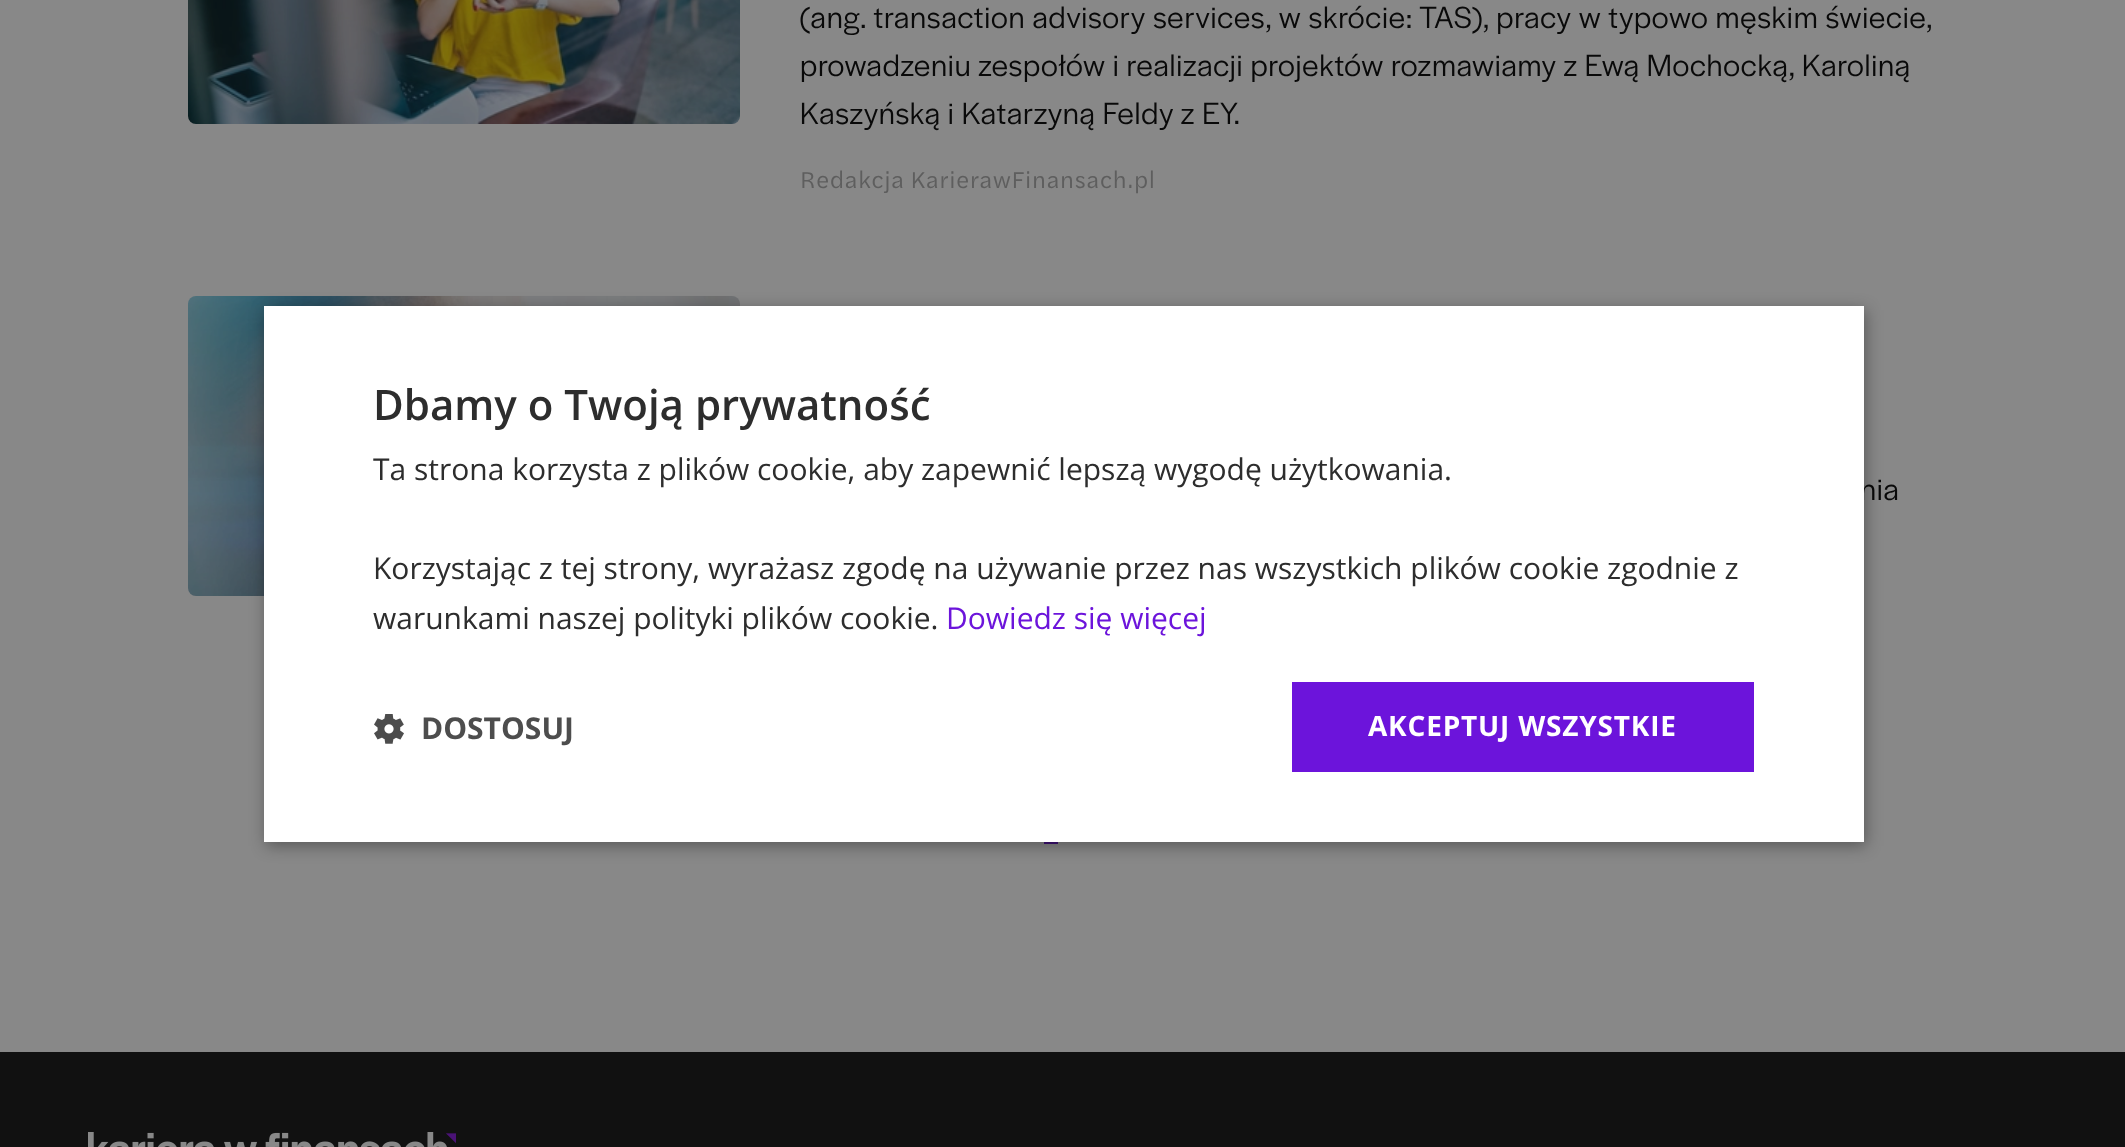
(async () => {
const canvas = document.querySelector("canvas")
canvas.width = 2125
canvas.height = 1147
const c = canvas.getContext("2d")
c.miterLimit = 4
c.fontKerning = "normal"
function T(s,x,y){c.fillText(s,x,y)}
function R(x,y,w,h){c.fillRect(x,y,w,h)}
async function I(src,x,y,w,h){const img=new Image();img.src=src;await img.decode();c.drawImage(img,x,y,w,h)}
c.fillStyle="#888"
R(0,0,2125,1147)
await I("1.png",188,0,552,124)
c.letterSpacing="0.8px"
c.font="32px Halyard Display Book"
c.fillStyle="#090909"
T("(ang. transaction advisory services, w skrócie: TAS), pracy w typowo męskim świecie,",800,28)
T("prowadzeniu zespołów i realizacji projektów rozmawiamy z Ewą Mochocką, Karoliną",800,76)
T("Kaszyńską i Katarzyną Feldy z EY.",800,124)
c.font="24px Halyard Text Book"
c.fillStyle="#5e5e5e"
T("Redakcja KarierawFinansach.pl",800,188)
await I("2.png",188,296,552,300)
c.font="32px Halyard Display Book"
c.fillStyle="#090909"
T("nia",1860,500)
c.fillStyle="#3f1376"
R(1044,842,14,2)
c.fillStyle="#00000059"
c.filter="blur(8px)"
c.beginPath()
c.rect(266,310,1600,536)
c.fill()
c.filter="none"
c.fillStyle="#fff"
R(264,306,1600,536)
c.letterSpacing="0px"
c.font="600 42px Open Sans"
c.fillStyle="#2d2d2d"
T("Dbamy o Twoją prywatność",373,420)
c.font="30px Open Sans"
T("Ta strona korzysta z plików cookie, aby zapewnić lepszą wygodę użytkowania.",373,480)
T("Korzystając z tej strony, wyrażasz zgodę na używanie przez nas wszystkich plików cookie zgodnie z",373,579)
T("warunkami naszej polityki plików cookie.",373,629)
c.fillStyle="#6c14db"
T("Dowiedz się więcej",946,629)
await I("3.png",374,714,30,30)
c.font="bold 30px Open Sans"
c.fillStyle="#4d4d4d"
T("DOSTOSUJ",421,739)
c.fillStyle="#6c14db"
R(1292,682,462,90)
c.letterSpacing="0.8px"
c.font="bold 28px Open Sans"
c.fillStyle="#fff"
T("AKCEPTUJ WSZYSTKIE",1368,736)
c.fillStyle="#111"
R(0,1052,2125,95)
await I("4.png",88,1132,368,15)
})()
